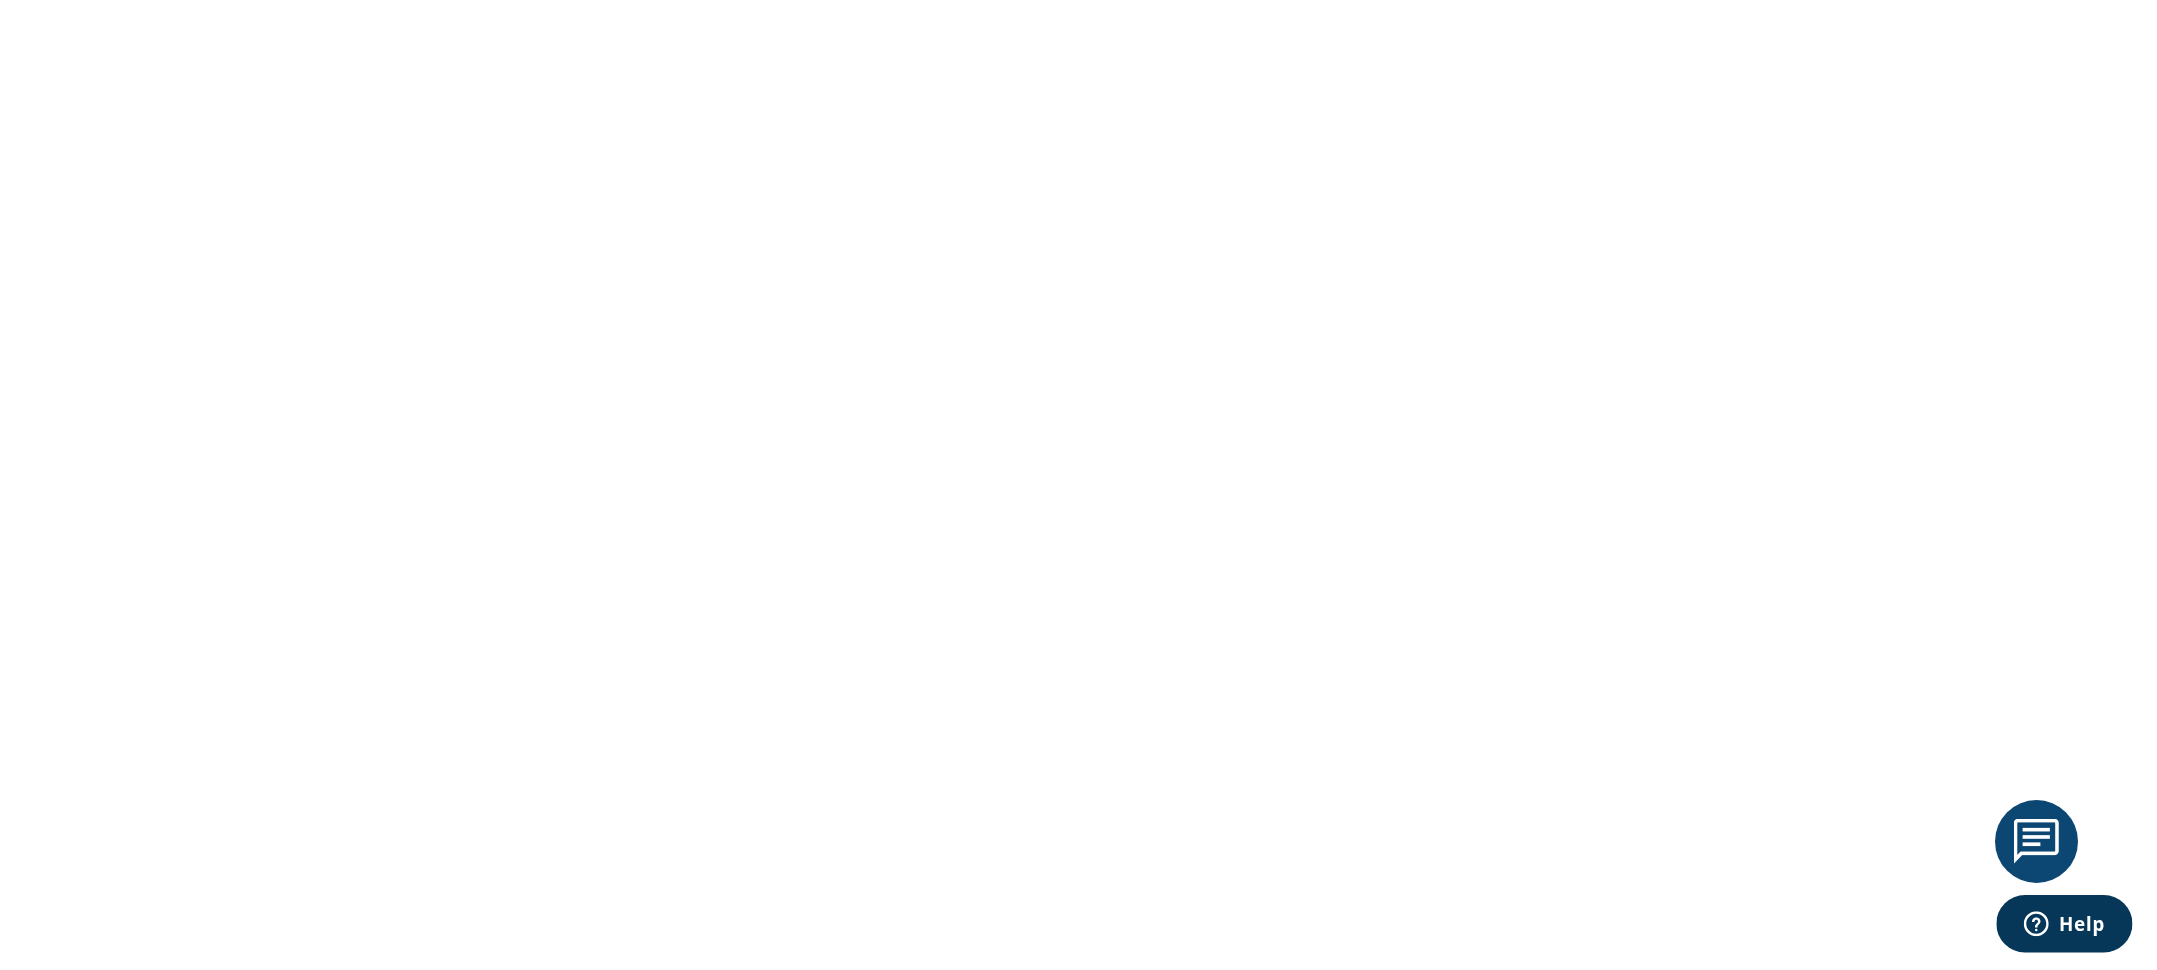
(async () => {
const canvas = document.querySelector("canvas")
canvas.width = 2157
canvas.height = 970
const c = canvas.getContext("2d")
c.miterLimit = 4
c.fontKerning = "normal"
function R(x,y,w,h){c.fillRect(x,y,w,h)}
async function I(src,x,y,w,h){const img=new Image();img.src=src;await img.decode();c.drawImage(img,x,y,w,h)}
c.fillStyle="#fff"
R(0,0,2157,970)
c.fillStyle="#0c4673"
c.beginPath()
c.arc(2036.5,841.5,41.5,0,7)
c.fill()
await I("1.png",2014,819,45,45)
await I("2.png",1996,895,137,58)
})()
